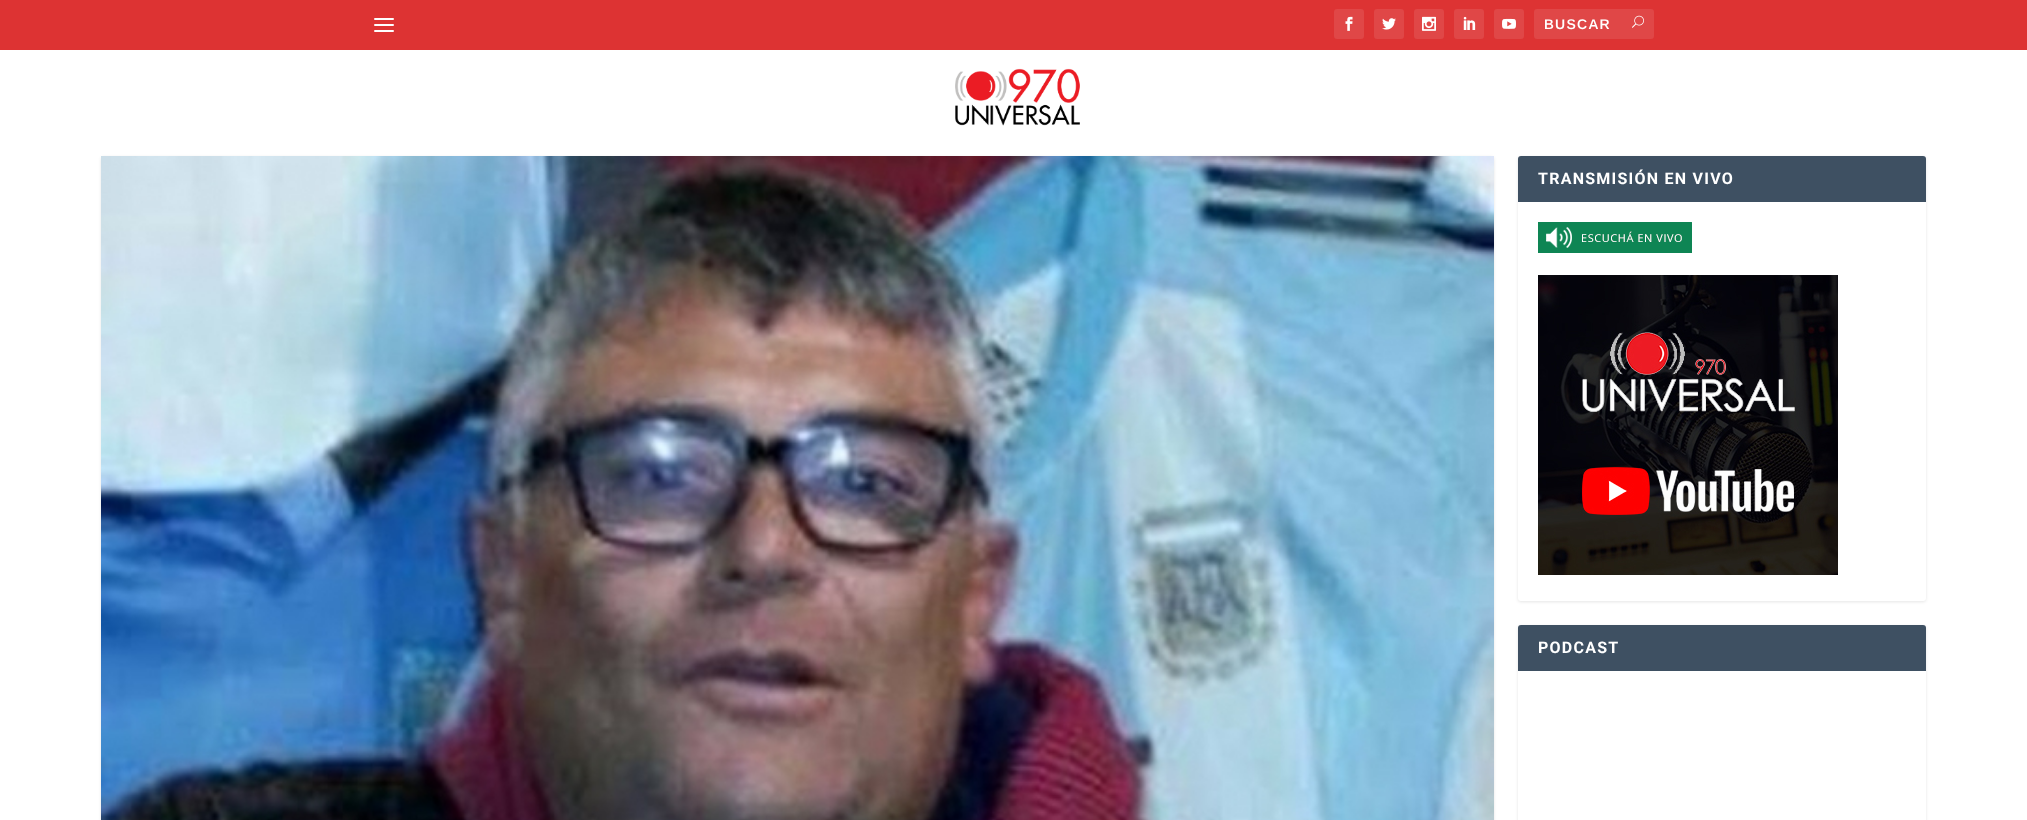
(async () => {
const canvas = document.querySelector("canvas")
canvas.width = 2027
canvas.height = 820
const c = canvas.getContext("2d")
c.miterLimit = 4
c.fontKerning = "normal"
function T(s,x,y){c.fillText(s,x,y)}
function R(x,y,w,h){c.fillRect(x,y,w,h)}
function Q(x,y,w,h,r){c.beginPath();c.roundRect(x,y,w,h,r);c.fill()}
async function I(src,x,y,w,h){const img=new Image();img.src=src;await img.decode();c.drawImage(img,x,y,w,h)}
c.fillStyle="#fff"
R(0,0,2027,820)
c.fillStyle="#d33"
R(0,0,2027,50)
c.fillStyle="#fff"
Q(374,18,20,2,1)
Q(374,24,20,2,1)
Q(374,30,20,2,1)
c.fillStyle="#e04747"
Q(1334,9,30,30,3)
await I("1.png",1345,16,8,15)
Q(1374,9,30,30,3)
await I("2.png",1382,18,14,12)
Q(1414,9,30,30,3)
await I("3.png",1422,16,14,15)
Q(1454,9,30,30,3)
await I("4.png",1463,16,13,14)
Q(1494,9,30,30,3)
await I("5.png",1502,18,14,11)
Q(1534,9,120,30,3)
c.letterSpacing="1.25px"
c.font="600 14px Arimo"
c.fillStyle="#fff"
T("BUSCAR",1544,29)
await I("6.png",1632,15,12,13)
await I("7.png",955,68,125,58)
c.fillStyle="#0000001a"
c.filter="blur(1.5px)"
c.beginPath()
c.roundRect(101,157,1393,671,3)
c.fill()
c.filter="none"
await I("8.png",101,156,1393,664)
c.filter="blur(1.5px)"
c.beginPath()
c.roundRect(1518,157,408,445,3)
c.fill()
c.filter="none"
c.fillStyle="#fff"
Q(1518,156,408,445,3)
c.fillStyle="#3e5062"
c.beginPath()
c.roundRect(1518,156,408,46,[3,3,0,0])
c.fill()
c.font="bold 16px Roboto"
c.fillStyle="#fff"
T("TRANSMISIÓN EN VIVO",1538,184)
await I("9.png",1538,222,154,31)
await I("10.png",1538,275,300,300)
c.fillStyle="#0000001a"
c.filter="blur(1.5px)"
c.beginPath()
c.roundRect(1518,626,408,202,3)
c.fill()
c.filter="none"
c.fillStyle="#fff"
Q(1518,625,408,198,3)
c.fillStyle="#3e5062"
c.beginPath()
c.roundRect(1518,625,408,46,[3,3,0,0])
c.fill()
c.fillStyle="#fff"
T("PODCAST",1538,653)
})()
